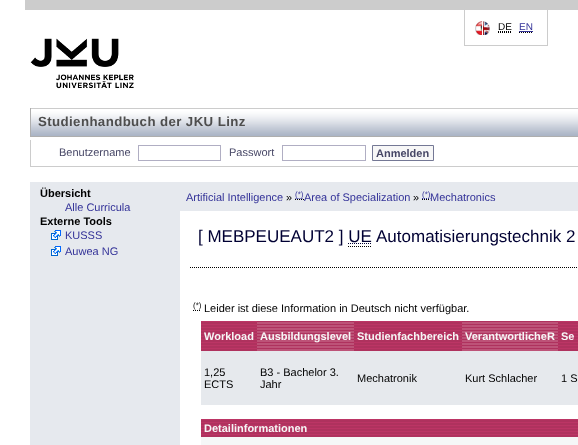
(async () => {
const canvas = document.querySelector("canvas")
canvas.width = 578
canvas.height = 445
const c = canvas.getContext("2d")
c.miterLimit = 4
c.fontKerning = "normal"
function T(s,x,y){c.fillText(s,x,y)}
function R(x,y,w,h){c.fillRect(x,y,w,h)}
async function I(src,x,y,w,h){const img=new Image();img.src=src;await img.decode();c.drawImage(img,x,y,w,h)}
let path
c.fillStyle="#fff"
R(0,0,578,445)
c.fillStyle="#ccc"
R(25,0,553,10)
R(547,10,1,36)
R(464,45,84,1)
R(464,10,1,36)
await I("1.png",475,21,15,14)
c.font="10px Liberation Sans"
c.fillStyle="#000"
T("DE",498,30)
path = new Path2D("M498 32.5h13m-13-1h13.5")
c.strokeStyle="#000"
c.setLineDash([1,1])
c.stroke(path)
c.fillStyle="#333298"
T("EN",519,30)
path = new Path2D("M519 32.5h14")
c.stroke(path)
R(519,31,14,1)
await I("2.png",30,38,104,51)
await I("3.png",31,108,547,28)
c.fillStyle="#aeaeae"
R(30,136,548,1)
R(30,108,1,29)
c.letterSpacing="0.4px"
c.font="bold 13.25px Liberation Sans"
c.fillStyle="#4e4e4e"
T("Studienhandbuch der JKU Linz",38,126)
c.fillStyle="#ccc"
R(30,166,548,1)
R(30,140,1,27)
c.letterSpacing="0px"
c.font="11px Liberation Sans"
c.fillStyle="#474766"
T("Benutzername",59,156)
c.strokeStyle="#b0aec3"
c.setLineDash([])
c.strokeRect(138.5,145.5,82,15)
T("Passwort",229,156)
c.strokeRect(282.5,145.5,83,15)
c.fillStyle="#f7f7f7"
c.beginPath()
c.rect(372.5,145.5,61,15)
c.fill()
c.strokeStyle="#747895"
c.stroke()
c.font="bold 11px Liberation Sans"
c.fillStyle="#474766"
T("Anmelden",376,157)
c.fillStyle="#e6e9ee"
R(30,182,150,263)
c.fillStyle="#000"
T("Übersicht",40,197)
c.font="11px Liberation Sans"
c.fillStyle="#333298"
T("Alle Curricula",65,211)
c.font="bold 11px Liberation Sans"
c.fillStyle="#000"
T("Externe Tools",40,225)
await I("4.png",51,230,10,10)
c.font="11px Liberation Sans"
c.fillStyle="#333298"
T("KUSSS",65,239)
await I("4.png",51,246,10,10)
T("Auwea NG",65,255)
c.fillStyle="#e6e9ee"
R(180,182,398,29)
c.fillStyle="#333298"
T("Artificial Intelligence",186,201)
c.fillStyle="#000"
T("»",286,201)
path = new Path2D("M295.5 198.5h8")
c.strokeStyle="#333298"
c.setLineDash([1,1])
c.stroke(path)
c.font="8px Liberation Sans"
c.fillStyle="#333298"
T("(*)",295,197)
path = new Path2D("M295 199.5h9")
c.strokeStyle="#000"
c.stroke(path)
c.font="11px Liberation Sans"
T("Area of Specialization",304,201)
c.fillStyle="#000"
T("»",413,201)
path = new Path2D("M422 198.5h8.5")
c.strokeStyle="#333298"
c.stroke(path)
c.font="8px Liberation Sans"
c.fillStyle="#333298"
T("(*)",422,197)
c.font="11px Liberation Sans"
T("Mechatronics",430,201)
path = new Path2D("M422 199.5h8")
c.strokeStyle="#000"
c.stroke(path)
path = new Path2D("M190 267.5h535")
c.stroke(path)
c.font="17px Liberation Sans"
c.fillStyle="#003"
T("[ MEBPEUEAUT2 ] UE",198,242)
T("Automatisierungstechnik 2",376,242)
path = new Path2D("M348 243.5h24")
c.strokeStyle="#003"
c.stroke(path)
path = new Path2D("M348 246.5h24")
c.strokeStyle="#000"
c.stroke(path)
c.font="8px Liberation Sans"
c.fillStyle="#000"
T("(*)",193,308)
path = new Path2D("M193 310.5h8")
c.stroke(path)
c.font="11px Liberation Sans"
T("Leider ist diese Information in Deutsch nicht verfügbar.",204,312)
await I("5.png",201,321,56,30)
c.font="bold 11px Liberation Sans"
c.fillStyle="#f7f7f7"
T("Workload",204,340)
await I("6.png",257,321,97,30)
T("Ausbildungslevel",260,340)
await I("7.png",354,321,108,30)
T("Studienfachbereich",357,340)
await I("8.png",462,321,96,30)
T("VerantwortlicheR",465,340)
await I("9.png",558,321,20,30)
T("Se",561,340)
c.fillStyle="#e6e9ed"
R(201,351,377,54)
c.font="11px Liberation Sans"
c.fillStyle="#000"
T("1,25",204,376)
T("ECTS",204,388)
T("B3 - Bachelor 3.",260,376)
T("Jahr",260,388)
T("Mechatronik",357,382)
T("Kurt Schlacher",465,382)
T("1 S",561,382)
await I("10.png",201,419,377,18)
c.font="bold 11px Liberation Sans"
c.fillStyle="#f7f7f7"
T("Detailinformationen",204,432)
c.fillStyle="#f5f7f7"
R(201,437,377,8)
})()
